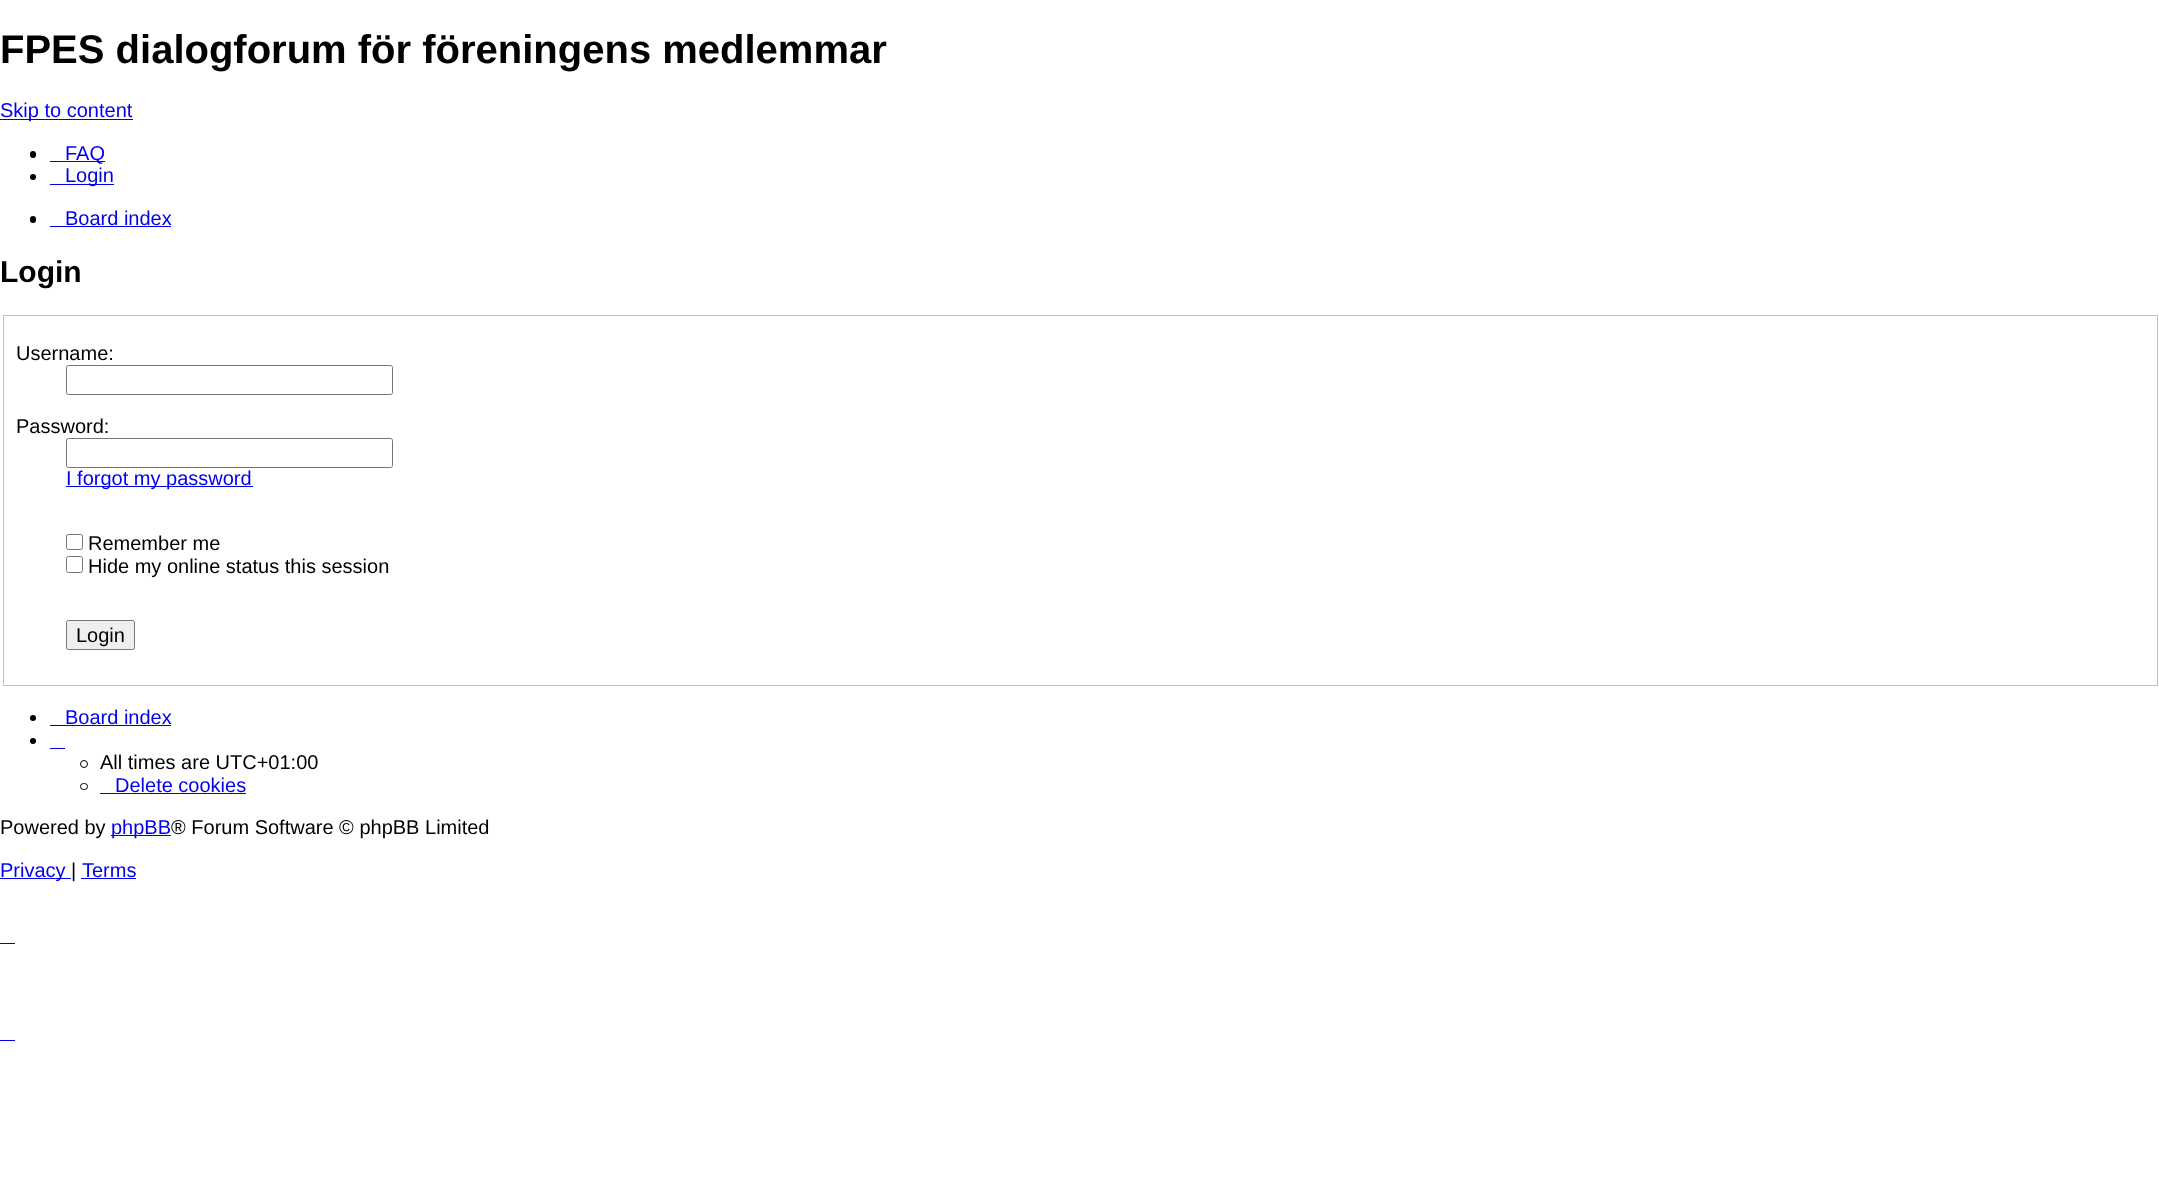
(async () => {
const canvas = document.querySelector("canvas")
canvas.width = 2159
canvas.height = 1191
const c = canvas.getContext("2d")
c.miterLimit = 4
c.fontKerning = "normal"
function T(s,x,y){c.fillText(s,x,y)}
function R(x,y,w,h){c.fillRect(x,y,w,h)}
function Q(x,y,w,h,r){c.beginPath();c.roundRect(x,y,w,h,r);c.fill()}
c.fillStyle="#fff"
R(0,0,2159,1191)
c.font="bold 40px Liberation Sans"
c.fillStyle="#000"
T("FPES dialogforum för föreningens medlemmar",0,63)
c.fillStyle="#00e"
R(0,119,133,1)
c.font="20px Liberation Sans"
T("Skip to content",0,117)
c.fillStyle="#000"
Q(30,151,6,7,3)
c.fillStyle="#00e"
R(50,161,55,1)
T("FAQ",65,160)
c.fillStyle="#000"
c.beginPath()
c.arc(33,177,3,0,7)
c.fill()
c.fillStyle="#00e"
R(50,184,64,1)
T("Login",65,182)
c.fillStyle="#000"
Q(30,216,6,7,3)
c.fillStyle="#00e"
T("Board index",65,225)
R(50,226,121,1)
c.font="bold 30px Liberation Sans"
c.fillStyle="#000"
T("Login",0,282)
c.strokeStyle="#c0c0c0"
c.strokeRect(3.5,315.5,2154,370)
c.font="20px Liberation Sans"
T("Username:",16,360)
c.beginPath()
c.roundRect(66.5,365.5,326,29,2)
c.strokeStyle="#767676"
c.stroke()
T("Password:",16,433)
c.beginPath()
c.roundRect(66.5,438.5,326,29,2)
c.stroke()
c.fillStyle="#00e"
R(66,486,187,1)
T("I forgot my password",66,485)
c.beginPath()
c.roundRect(66.5,534.5,16,15,2)
c.stroke()
c.fillStyle="#000"
T("Remember me",88,550)
c.beginPath()
c.roundRect(66.5,556.5,16,16,2)
c.stroke()
T("Hide my online status this session",88,573)
c.fillStyle="#efefef"
c.beginPath()
c.roundRect(66.5,620.5,68,29,2)
c.fill()
c.stroke()
c.fillStyle="#000"
T("Login",76,642)
c.beginPath()
c.arc(33,718,3,0,7)
c.fill()
c.fillStyle="#00e"
T("Board index",65,724)
R(50,725,121,1)
c.fillStyle="#000"
c.beginPath()
c.arc(33,741,3,0,7)
c.fill()
c.fillStyle="#00e"
R(50,748,15,1)
c.beginPath()
c.arc(84,764,3.5,0,7)
c.strokeStyle="#000"
c.stroke()
c.fillStyle="#000"
T("All times are UTC+01:00",100,769)
c.beginPath()
c.roundRect(80.5,783.5,7,6,3)
c.stroke()
c.fillStyle="#00e"
T("Delete cookies",115,792)
R(100,793,146,1)
c.fillStyle="#000"
T("Powered by",0,834)
c.fillStyle="#00e"
R(111,835,60,1)
T("phpBB",111,834)
c.fillStyle="#000"
T("® Forum Software © phpBB Limited",171,834)
c.fillStyle="#00e"
R(0,878,65,1)
T("Privacy",0,877)
R(65,878,6,1)
c.fillStyle="#000"
T("|",71,877)
c.fillStyle="#00e"
T("Terms",82,877)
R(81,878,55,1)
R(0,943,15,1)
R(0,1040,15,1)
})()
